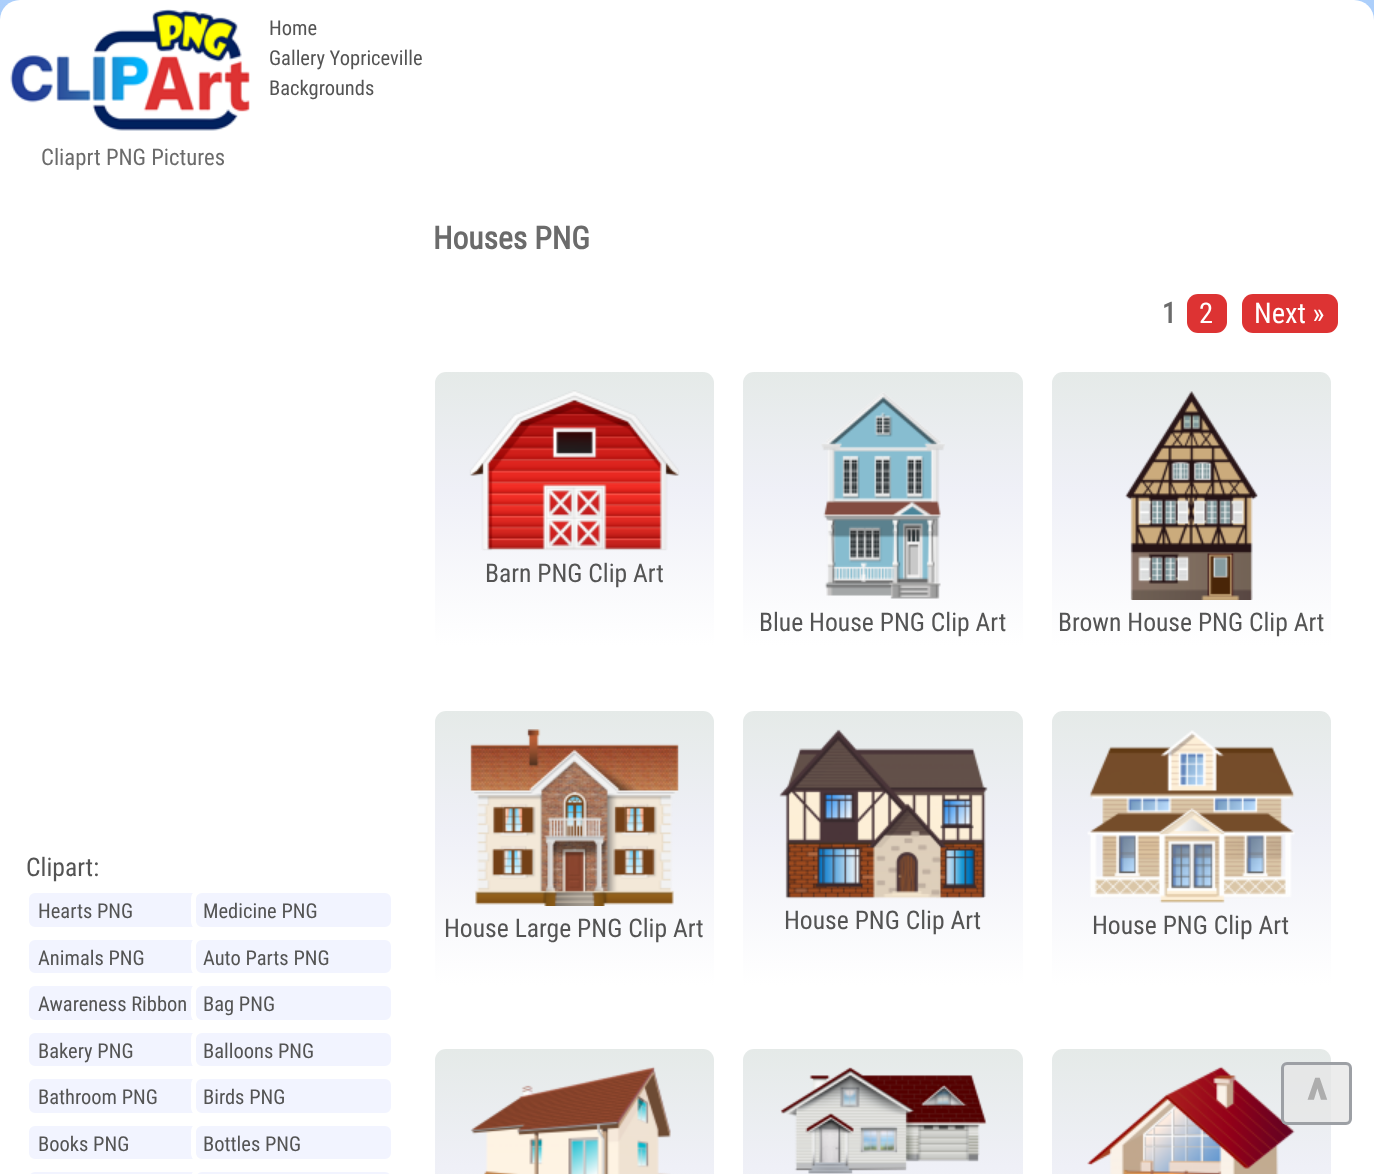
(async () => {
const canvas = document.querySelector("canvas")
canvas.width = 1374
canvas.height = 1174
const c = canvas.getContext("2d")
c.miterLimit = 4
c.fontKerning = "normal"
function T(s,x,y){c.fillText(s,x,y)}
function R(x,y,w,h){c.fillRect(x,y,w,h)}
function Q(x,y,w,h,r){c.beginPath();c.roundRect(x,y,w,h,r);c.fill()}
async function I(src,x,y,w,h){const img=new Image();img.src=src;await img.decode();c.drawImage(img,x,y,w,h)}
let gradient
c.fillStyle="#fff"
R(0,0,1374,1174)
gradient = c.createLinearGradient(687,0,687,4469)
gradient.addColorStop(0,"#accffb")
gradient.addColorStop(1,"#014ab1")
c.fillStyle = gradient
R(0,0,1374,20)
c.fillStyle="#fff"
c.beginPath()
c.roundRect(0,0,1374,216,[20,20,0,0])
c.fill()
c.font="20.5px Roboto Condensed"
c.fillStyle="#545454"
T("Home",269,35)
T("Gallery Yopriceville",269,65)
T("Backgrounds",269,95)
await I("1.png",10,9,240,122)
c.font="22.75px Roboto Condensed"
c.fillStyle="#6b6b6b"
T("Cliaprt PNG Pictures",41,165)
c.font="bold 31.5px Roboto Condensed"
T("Houses PNG",433,249)
c.font="bold 28.5px Roboto Condensed"
T("1",1162,323)
c.fillStyle="#d33"
Q(1187,294,40,39,11)
c.font="28.5px Roboto Condensed"
c.fillStyle="#fff"
T("2",1199,323)
c.fillStyle="#d33"
Q(1242,294,96,39,11)
c.fillStyle="#fff"
T("Next »",1254,323)
gradient = c.createLinearGradient(575,372,575,683)
gradient.addColorStop(0,"#e5eae8")
gradient.addColorStop(.38,"#eff0f7")
gradient.addColorStop(.88,"#fff")
c.fillStyle = gradient
Q(435,372,279,311,11)
await I("2.png",469,390,211,161)
c.font="25.6px Roboto Condensed"
c.fillStyle="#545454"
T("Barn PNG Clip Art",485,582)
gradient = c.createLinearGradient(883,372,883,683)
gradient.addColorStop(0,"#e5eae8")
gradient.addColorStop(.38,"#eff0f7")
gradient.addColorStop(.88,"#fff")
c.fillStyle = gradient
Q(743,372,280,311,11)
await I("3.png",821,392,124,207)
c.fillStyle="#545454"
T("Blue House PNG Clip Art",759,631)
gradient = c.createLinearGradient(1191,372,1191,683)
gradient.addColorStop(0,"#e5eae8")
gradient.addColorStop(.38,"#eff0f7")
gradient.addColorStop(.88,"#fff")
c.fillStyle = gradient
Q(1052,372,279,311,11)
await I("4.png",1125,391,133,209)
c.fillStyle="#545454"
T("Brown House PNG Clip Art",1058,631)
gradient = c.createLinearGradient(575,711,575,1022)
gradient.addColorStop(0,"#e5eae8")
gradient.addColorStop(.38,"#eff0f7")
gradient.addColorStop(.88,"#fff")
c.fillStyle = gradient
Q(435,711,279,311,11)
await I("5.png",470,729,209,177)
c.fillStyle="#545454"
T("House Large PNG Clip Art",444,937)
gradient = c.createLinearGradient(883,711,883,1022)
gradient.addColorStop(0,"#e5eae8")
gradient.addColorStop(.38,"#eff0f7")
gradient.addColorStop(.88,"#fff")
c.fillStyle = gradient
Q(743,711,280,311,11)
await I("6.png",779,729,209,170)
c.fillStyle="#545454"
T("House PNG Clip Art",784,929)
gradient = c.createLinearGradient(1191,711,1191,1022)
gradient.addColorStop(0,"#e5eae8")
gradient.addColorStop(.38,"#eff0f7")
gradient.addColorStop(.88,"#fff")
c.fillStyle = gradient
Q(1052,711,279,311,11)
await I("7.png",1087,730,208,173)
c.fillStyle="#545454"
T("House PNG Clip Art",1092,934)
gradient = c.createLinearGradient(575,1049,575,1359)
gradient.addColorStop(0,"#e5eae8")
gradient.addColorStop(.38,"#eff0f7")
gradient.addColorStop(.88,"#fff")
c.fillStyle = gradient
Q(435,1049,279,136,11)
await I("8.png",470,1066,201,108)
gradient = c.createLinearGradient(883,1049,883,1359)
gradient.addColorStop(0,"#e5eae8")
gradient.addColorStop(.38,"#eff0f7")
gradient.addColorStop(.88,"#fff")
c.fillStyle = gradient
Q(743,1049,280,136,11)
await I("9.png",780,1067,207,107)
gradient = c.createLinearGradient(1191,1049,1191,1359)
gradient.addColorStop(0,"#e5eae8")
gradient.addColorStop(.38,"#eff0f7")
gradient.addColorStop(.88,"#fff")
c.fillStyle = gradient
Q(1052,1049,279,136,11)
await I("10.png",1087,1066,208,108)
c.fillStyle="#545454"
T("Clipart:",26,876)
c.fillStyle="#f2f4ff"
c.beginPath()
c.roundRect(26.5,890.5,201,39,8.5)
c.fill()
c.strokeStyle="#fff"
c.lineWidth=5
c.stroke()
c.font="20.5px Roboto Condensed"
c.fillStyle="#545454"
T("Hearts PNG",38,918)
c.fillStyle="#f2f4ff"
c.beginPath()
c.roundRect(193.5,890.5,200,39,8.5)
c.fill()
c.stroke()
c.fillStyle="#545454"
T("Medicine PNG",203,918)
c.fillStyle="#f2f4ff"
c.beginPath()
c.roundRect(26.5,937.5,201,38,8.5)
c.fill()
c.stroke()
c.fillStyle="#545454"
T("Animals PNG",38,965)
c.fillStyle="#f2f4ff"
c.beginPath()
c.roundRect(193.5,937.5,200,38,8.5)
c.fill()
c.stroke()
c.fillStyle="#545454"
T("Auto Parts PNG",203,965)
c.fillStyle="#f2f4ff"
c.beginPath()
c.roundRect(26.5,983.5,201,39,8.5)
c.fill()
c.stroke()
c.fillStyle="#545454"
T("Awareness Ribbon",38,1011)
c.fillStyle="#f2f4ff"
c.beginPath()
c.roundRect(193.5,983.5,200,39,8.5)
c.fill()
c.stroke()
c.fillStyle="#545454"
T("Bag PNG",203,1011)
c.fillStyle="#f2f4ff"
c.beginPath()
c.roundRect(26.5,1030.5,201,38,8.5)
c.fill()
c.stroke()
c.fillStyle="#545454"
T("Bakery PNG",38,1058)
c.fillStyle="#f2f4ff"
c.beginPath()
c.roundRect(193.5,1030.5,200,38,8.5)
c.fill()
c.stroke()
c.fillStyle="#545454"
T("Balloons PNG",203,1058)
c.fillStyle="#f2f4ff"
c.beginPath()
c.roundRect(26.5,1076.5,201,39,8.5)
c.fill()
c.stroke()
c.fillStyle="#545454"
T("Bathroom PNG",38,1104)
c.fillStyle="#f2f4ff"
c.beginPath()
c.roundRect(193.5,1076.5,200,39,8.5)
c.fill()
c.stroke()
c.fillStyle="#545454"
T("Birds PNG",203,1104)
c.fillStyle="#f2f4ff"
c.beginPath()
c.roundRect(26.5,1123.5,201,38,8.5)
c.fill()
c.stroke()
c.fillStyle="#545454"
T("Books PNG",38,1151)
c.fillStyle="#f2f4ff"
c.beginPath()
c.roundRect(193.5,1123.5,200,38,8.5)
c.fill()
c.stroke()
c.fillStyle="#545454"
T("Bottles PNG",203,1151)
c.fillStyle="#f2f4ff"
c.beginPath()
c.roundRect(26.5,1169.5,201,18,8.5)
c.fill()
c.stroke()
c.beginPath()
c.roundRect(193.5,1169.5,200,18,8.5)
c.fill()
c.stroke()
c.fillStyle="#e6e6e6bd"
c.beginPath()
c.roundRect(1282.5,1063.5,68,60,4.5)
c.fill()
c.strokeStyle="#9da0a5"
c.lineWidth=3
c.stroke()
c.font="bold 57px Roboto Condensed"
c.fillStyle="#adadad"
T("^",1306,1120)
})()
